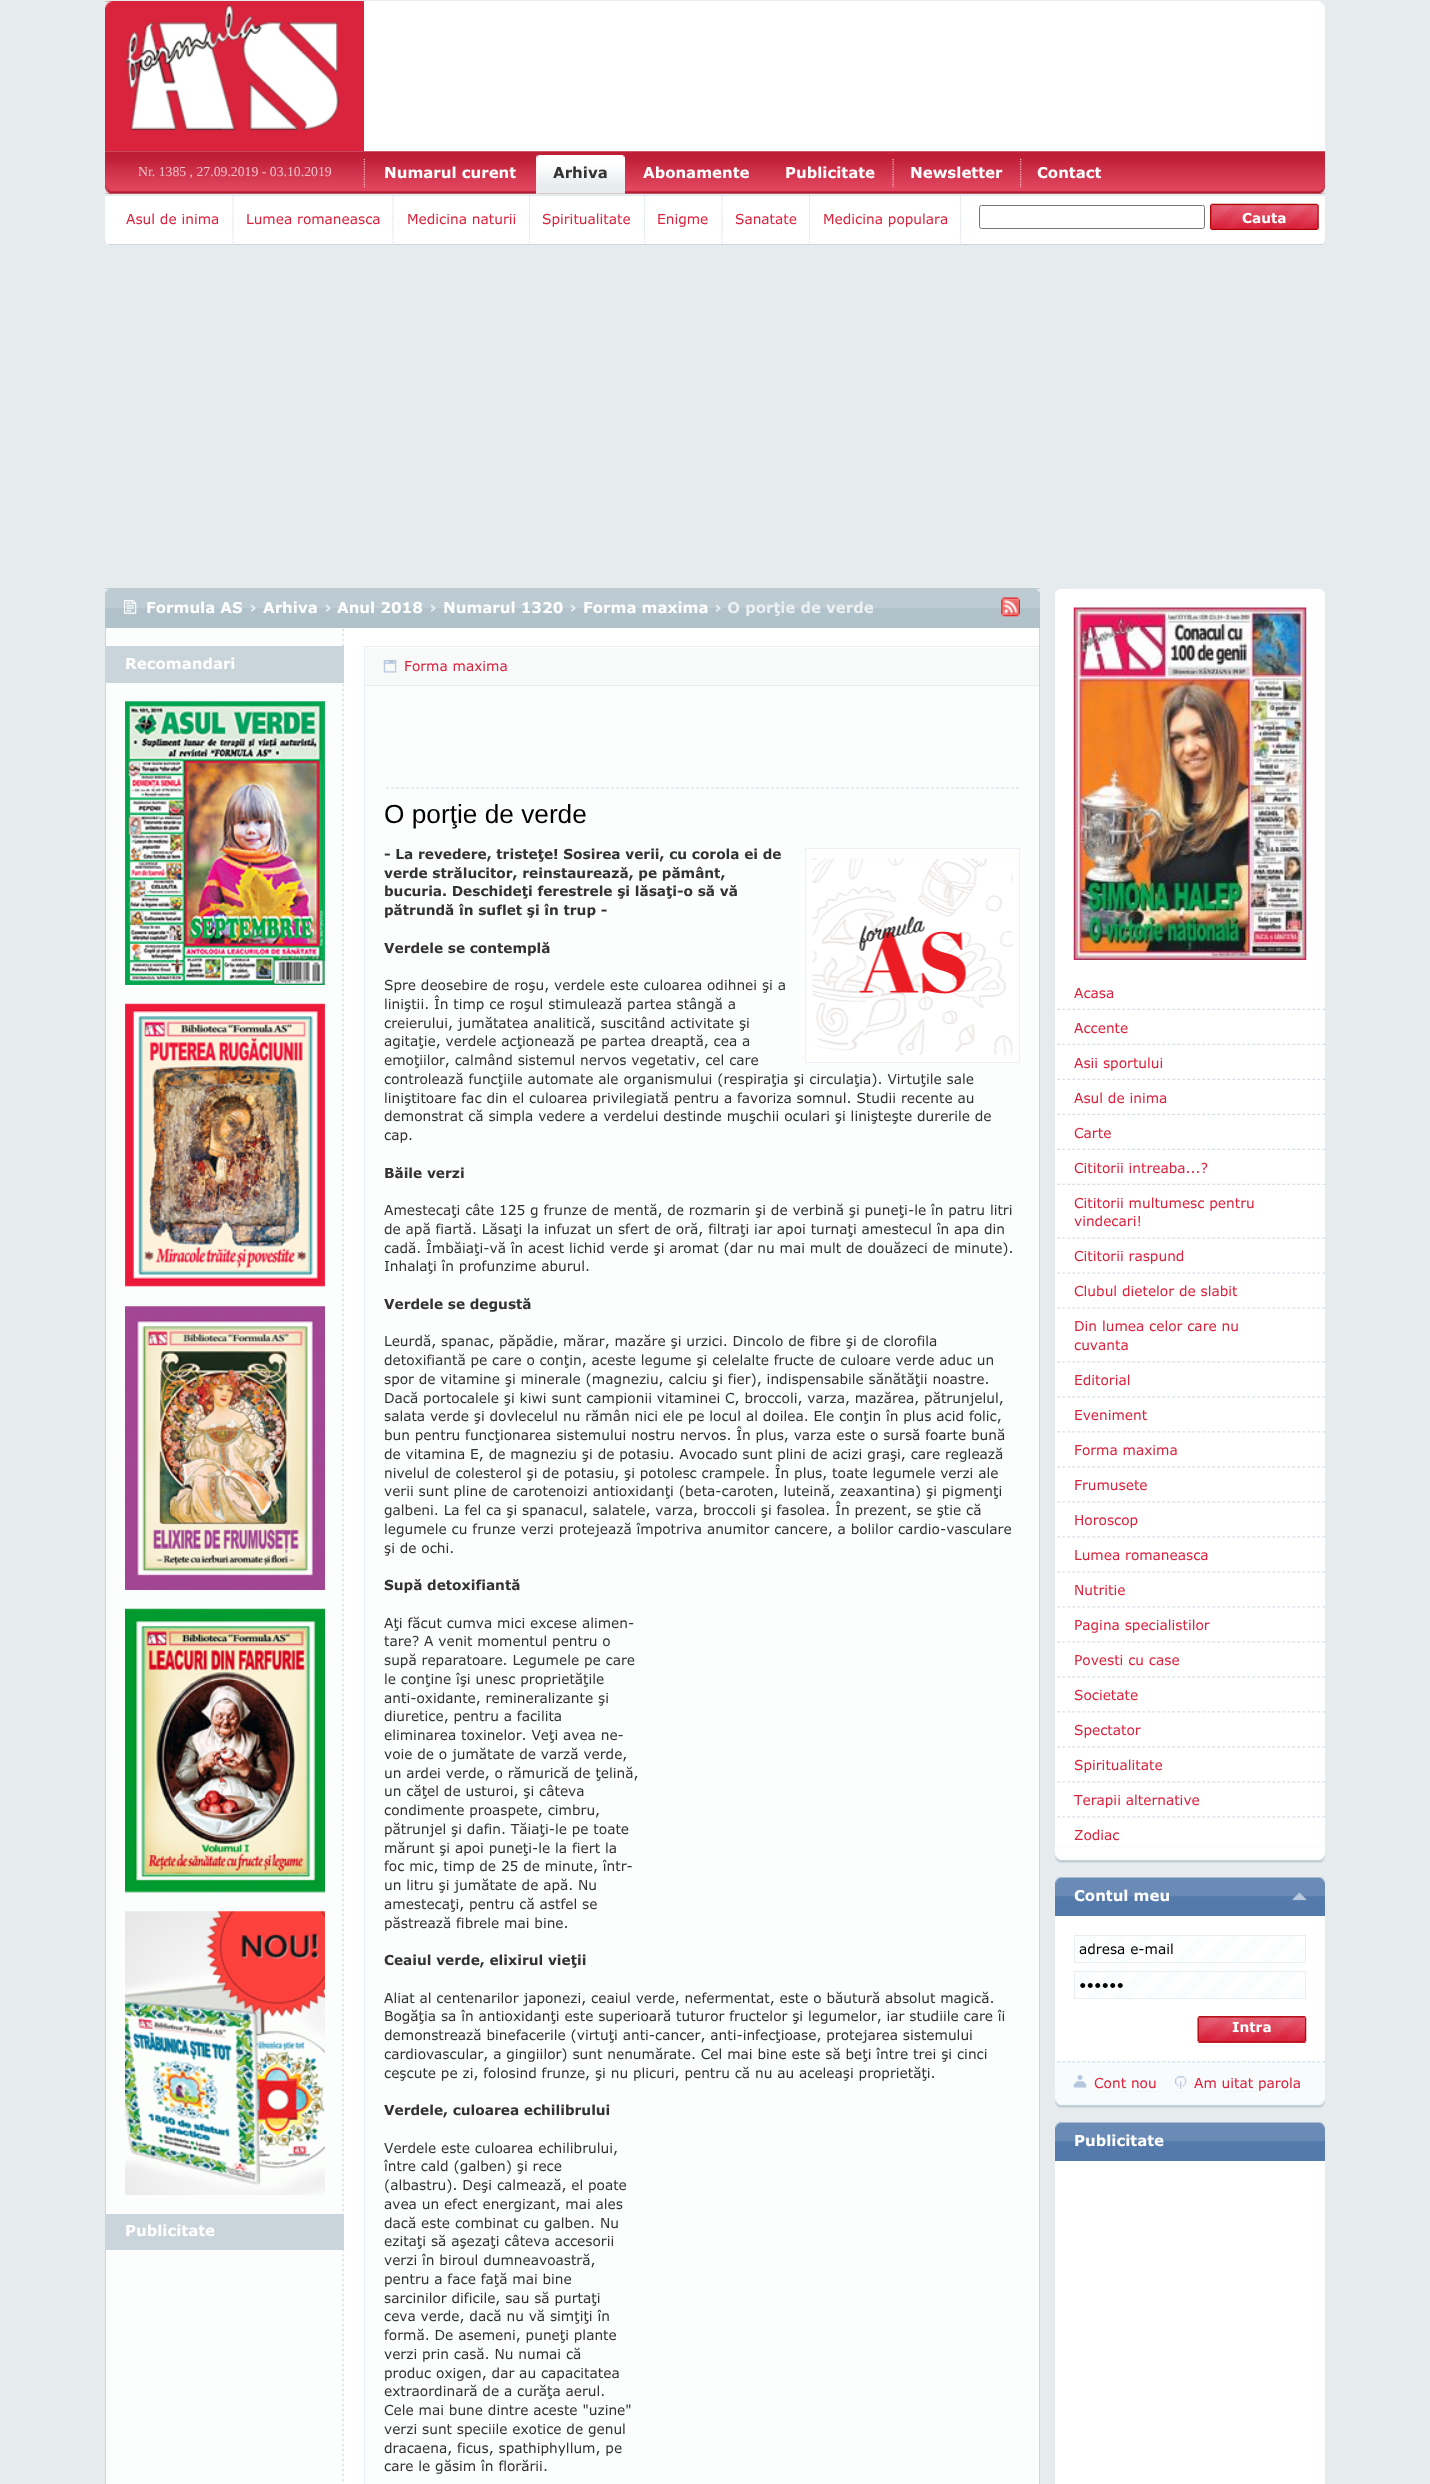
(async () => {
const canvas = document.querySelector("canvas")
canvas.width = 1430
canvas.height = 2484
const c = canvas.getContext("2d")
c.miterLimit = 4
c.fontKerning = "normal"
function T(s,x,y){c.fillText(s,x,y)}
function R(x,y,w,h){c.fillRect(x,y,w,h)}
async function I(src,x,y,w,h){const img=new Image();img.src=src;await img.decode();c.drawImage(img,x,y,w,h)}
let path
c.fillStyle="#e6ebee"
R(0,0,1430,2484)
c.fillStyle="#fff"
R(105,1,1220,193)
c.fillStyle="#da233d"
R(105,1,259,150)
await I("1.png",105,1,259,151)
await I("2.png",1319,1,6,7)
await I("3.png",105,151,1220,43)
c.font="13.75px Liberation Serif"
c.fillStyle="#f1c2c9"
T("Nr. 1385 , 27.09.2019 - 03.10.2019",138,176)
await I("4.png",363,158,2,30)
c.font="bold 15px Verdana"
c.fillStyle="#fff"
T("Numarul curent",384,178)
await I("5.png",536,155,89,39)
await I("6.png",536,155,3,39)
c.fillStyle="#333"
T("Arhiva",553,178)
c.fillStyle="#fff"
T("Abonamente",643,178)
T("Publicitate",785,178)
await I("7.png",892,158,2,30)
T("Newsletter",910,178)
await I("8.png",1020,158,2,30)
T("Contact",1037,178)
await I("9.png",105,185,6,9)
await I("10.png",1319,185,6,9)
c.beginPath()
c.roundRect(105,196,1220,49,[0,0,6,6])
c.fill()
c.fillStyle="#d1d6d9"
R(109,244,1214,1)
path = new Path2D("M233 196v48")
c.strokeStyle="#d1dde9"
c.lineWidth=1.2
c.setLineDash([1.25,1.25])
c.stroke(path)
c.font="13.75px Verdana"
c.fillStyle="#da233d"
T("Asul de inima",126,224)
path = new Path2D("M393 196v48")
c.stroke(path)
T("Lumea romaneasca",246,224)
path = new Path2D("M529.5 196v48")
c.stroke(path)
T("Medicina naturii",407,224)
path = new Path2D("M644.5 196v48")
c.stroke(path)
T("Spiritualitate",542,224)
path = new Path2D("M722 196v48")
c.stroke(path)
T("Enigme",657,224)
path = new Path2D("M809.5 196v48")
c.stroke(path)
T("Sanatate",735,224)
path = new Path2D("M960.5 196v48")
c.stroke(path)
T("Medicina populara",823,224)
c.beginPath()
c.roundRect(979.5,205.5,225,23,2)
c.strokeStyle="#767676"
c.lineWidth=1
c.setLineDash([])
c.stroke()
await I("11.png",1210,203,109,27)
c.font="bold 13.75px Verdana"
c.fillStyle="#fff"
T("Cauta",1242,223)
R(343,628,696,1856)
await I("12.png",106,628,238,1856)
c.fillStyle="#b1c2cb"
R(105,608,935,20)
c.fillStyle="#bdcbd3"
R(105,588,935,20)
await I("13.png",105,588,4,5)
await I("14.png",1036,588,4,5)
await I("15.png",123,600,14,14)
c.font="bold 15px Verdana"
c.fillStyle="#fff"
T("Formula AS",146,613)
c.fillStyle="#ebf0f2"
T("›",249,613)
c.fillStyle="#fff"
T("Arhiva",263,613)
c.fillStyle="#ebf0f2"
T("›",324,613)
c.fillStyle="#fff"
T("Anul 2018",337,613)
c.fillStyle="#ebf0f2"
T("›",429,613)
c.fillStyle="#fff"
T("Numarul 1320",443,613)
c.fillStyle="#ebf0f2"
T("›",569,613)
c.fillStyle="#fff"
T("Forma maxima",583,613)
c.fillStyle="#ebf0f2"
T("› O porţie de verde",714,613)
await I("16.png",1001,597,19,20)
c.fillStyle="#ced4d8"
R(1039,628,1,1856)
R(105,628,1,1856)
c.fillStyle="#cad5db"
R(106,646,238,37)
c.fillStyle="#fff"
T("Recomandari",125,669)
await I("17.png",125,701,200,284)
await I("18.png",125,1003,200,284)
await I("19.png",125,1306,200,284)
await I("20.png",125,1608,200,285)
await I("21.png",125,1911,200,284)
c.fillStyle="#cad5db"
R(106,2214,238,36)
c.fillStyle="#fff"
T("Publicitate",125,2236)
c.fillStyle="#fcfdfd"
R(365,686,674,1798)
c.fillStyle="#e8eef4"
R(364,646,675,1)
R(364,646,1,1838)
c.fillStyle="#f8fafa"
R(365,648,674,37)
c.fillStyle="#e8eef4"
R(365,685,674,1)
await I("22.png",383,660,14,13)
c.font="13.75px Verdana"
c.fillStyle="#da233d"
T("Forma maxima",404,671)
await I("23.png",383,787,636,2)
c.font="26.25px Liberation Sans"
c.fillStyle="#000"
T("O porţie de verde",384,823)
c.font="bold 13.75px Verdana"
c.fillStyle="#333"
T("- La revedere, tristeţe! Sosirea verii, cu corola ei de",384,859)
T("verde strălucitor, reinstaurează, pe pământ,",384,878)
T("bucuria. Deschideţi ferestrele şi lăsaţi-o să vă",384,896)
T("pătrundă în suflet şi în trup -",384,915)
T("Verdele se contemplă",384,953)
c.font="13.75px Verdana"
T("Spre deosebire de roşu, verdele este culoarea odihnei şi a",384,990)
T("liniştii. În timp ce roşul stimulează partea stângă a",384,1009)
T("creierului, jumătatea analitică, suscitând activitate şi",384,1028)
T("agitaţie, verdele acţionează pe partea dreaptă, cea a",384,1046)
T("emoţiilor, calmând sistemul nervos vegetativ, cel care",384,1065)
T("controlează funcţiile automate ale organismului (respiraţia şi circulaţia). Virtuţile sale",384,1084)
T("liniştitoare fac din el culoarea privilegiată pentru a favoriza somnul. Studii recente au",384,1103)
T("demonstrat că simpla vedere a verdelui destinde muşchii oculari şi linişteşte durerile de",384,1121)
T("cap.",384,1140)
c.font="bold 13.75px Verdana"
T("Băile verzi",384,1178)
c.font="13.75px Verdana"
T("Amestecaţi câte 125 g frunze de mentă, de rozmarin şi de verbină şi puneţi-le în patru litri",384,1215)
T("de apă fiartă. Lăsaţi la infuzat un sfert de oră, filtraţi iar apoi turnaţi amestecul în apa din",384,1234)
T("cadă. Îmbăiaţi-vă în acest lichid verde şi aromat (dar nu mai mult de douăzeci de minute).",384,1253)
T("Inhalaţi în profunzime aburul.",384,1271)
c.font="bold 13.75px Verdana"
T("Verdele se degustă",384,1309)
c.font="13.75px Verdana"
T("Leurdă, spanac, păpădie, mărar, mazăre şi urzici. Dincolo de fibre şi de clorofila",384,1346)
T("detoxifiantă pe care o conţin, aceste legume şi celelalte fructe de culoare verde aduc un",384,1365)
T("spor de vitamine şi minerale (magneziu, calciu şi fier), indispensabile sănătăţii noastre.",384,1384)
T("Dacă portocalele şi kiwi sunt campionii vitaminei C, broccoli, varza, mazărea, pătrunjelul,",384,1403)
T("salata verde şi dovlecelul nu rămân nici ele pe locul al doilea. Ele conţin în plus acid folic,",384,1421)
T("bun pentru funcţionarea sistemului nostru nervos. În plus, varza este o sursă foarte bună",384,1440)
T("de vitamina E, de magneziu şi de potasiu. Avocado sunt plini de acizi graşi, care reglează",384,1459)
T("nivelul de colesterol şi de potasiu, şi potolesc crampele. În plus, toate legumele verzi ale",384,1478)
T("verii sunt pline de carotenoizi antioxidanţi (beta-caroten, luteină, zeaxantina) şi pigmenţi",384,1496)
T("galbeni. La fel ca şi spanacul, salatele, varza, broccoli şi fasolea. În prezent, se ştie că",384,1515)
T("legumele cu frunze verzi protejează împotriva anumitor cancere, a bolilor cardio-vasculare",384,1534)
T("şi de ochi.",384,1553)
c.font="bold 13.75px Verdana"
T("Supă detoxifiantă",384,1590)
c.font="13.75px Verdana"
T("Aţi făcut cumva mici excese alimen-",384,1628)
T("tare? A venit momentul pentru o",384,1646)
T("supă reparatoare. Legumele pe care",384,1665)
T("le conţine îşi unesc proprietăţile",384,1684)
T("anti-oxidante, remineralizante şi",384,1703)
T("diuretice, pentru a facilita",384,1721)
T("eliminarea toxinelor. Veţi avea ne-",384,1740)
T("voie de o jumătate de varză verde,",384,1759)
T("un ardei verde, o rămurică de ţelină,",384,1778)
T("un căţel de usturoi, şi câteva",384,1796)
T("condimente proaspete, cimbru,",384,1815)
T("pătrunjel şi dafin. Tăiaţi-le pe toate",384,1834)
T("mărunt şi apoi puneţi-le la fiert la",384,1853)
T("foc mic, timp de 25 de minute, într-",384,1871)
T("un litru şi jumătate de apă. Nu",384,1890)
T("amestecaţi, pentru că astfel se",384,1909)
T("păstrează fibrele mai bine.",384,1928)
c.font="bold 13.75px Verdana"
T("Ceaiul verde, elixirul vieţii",384,1965)
c.font="13.75px Verdana"
T("Aliat al centenarilor japonezi, ceaiul verde, nefermentat, este o băutură absolut magică.",384,2003)
T("Bogăţia sa în antioxidanţi este superioară tuturor fructelor şi legumelor, iar studiile care îi",384,2021)
T("demonstrează binefacerile (virtuţi anti-cancer, anti-infecţioase, protejarea sistemului",384,2040)
T("cardiovascular, a gingiilor) sunt nenumărate. Cel mai bine este să beţi între trei şi cinci",384,2059)
T("ceşcute pe zi, folosind frunze, şi nu plicuri, pentru că nu au aceleaşi proprietăţi.",384,2078)
c.font="bold 13.75px Verdana"
T("Verdele, culoarea echilibrului",384,2115)
c.font="13.75px Verdana"
T("Verdele este culoarea echilibrului,",384,2153)
T("între cald (galben) şi rece",384,2171)
T("(albastru). Deşi calmează, el poate",384,2190)
T("avea un efect energizant, mai ales",384,2209)
T("dacă este combinat cu galben. Nu",384,2228)
T("ezitaţi să aşezaţi câteva accesorii",384,2246)
T("verzi în biroul dumneavoastră,",384,2265)
T("pentru a face faţă mai bine",384,2284)
T("sarcinilor dificile, sau să purtaţi",384,2303)
T("ceva verde, dacă nu vă simţiţi în",384,2321)
T("formă. De asemeni, puneţi plante",384,2340)
T("verzi prin casă. Nu numai că",384,2359)
T("produc oxigen, dar au capacitatea",384,2378)
T("extraordinară de a curăţa aerul.",384,2396)
T("Cele mai bune dintre aceste \"uzine\"",384,2415)
T("verzi sunt speciile exotice de genul",384,2434)
T("dracaena, ficus, spathiphyllum, pe",384,2453)
T("care le găsim în florării.",384,2471)
c.fillStyle="#fff"
c.beginPath()
c.rect(805.5,848.5,214,214)
c.fill()
c.strokeStyle="#efeffa"
c.stroke()
await I("24.png",812,858,201,197)
c.beginPath()
c.roundRect(1055,589,270,377,[6,6,0,0])
c.fill()
await I("25.png",1073,607,234,353)
R(1055,966,270,880)
await I("26.png",1055,1008,270,2)
c.fillStyle="#da233d"
T("Acasa",1074,998)
await I("26.png",1055,1043,270,2)
T("Accente",1074,1033)
await I("26.png",1055,1078,270,2)
T("Asii sportului",1074,1068)
await I("26.png",1055,1113,270,2)
T("Asul de inima",1074,1103)
await I("26.png",1055,1148,270,2)
T("Carte",1074,1138)
await I("26.png",1055,1183,270,2)
T("Cititorii intreaba...?",1074,1173)
await I("27.png",1057,1237,268,2)
T("Cititorii multumesc pentru",1074,1208)
T("vindecari!",1074,1226)
await I("27.png",1057,1272,268,2)
T("Cititorii raspund",1074,1261)
await I("27.png",1057,1307,268,2)
T("Clubul dietelor de slabit",1074,1296)
await I("28.png",1057,1361,268,2)
T("Din lumea celor care nu",1074,1331)
T("cuvanta",1074,1350)
await I("28.png",1057,1396,268,2)
T("Editorial",1074,1385)
await I("28.png",1057,1431,268,2)
T("Eveniment",1074,1420)
await I("28.png",1057,1466,268,2)
T("Forma maxima",1074,1455)
await I("28.png",1057,1501,268,2)
T("Frumusete",1074,1490)
await I("28.png",1057,1536,268,2)
T("Horoscop",1074,1525)
await I("28.png",1057,1571,268,2)
T("Lumea romaneasca",1074,1560)
await I("28.png",1057,1606,268,2)
T("Nutritie",1074,1595)
await I("28.png",1057,1641,268,2)
T("Pagina specialistilor",1074,1630)
await I("28.png",1057,1676,268,2)
T("Povesti cu case",1074,1665)
await I("28.png",1057,1711,268,2)
T("Societate",1074,1700)
await I("28.png",1057,1746,268,2)
T("Spectator",1074,1735)
await I("28.png",1057,1781,268,2)
T("Spiritualitate",1074,1770)
await I("28.png",1057,1816,268,2)
T("Terapii alternative",1074,1805)
T("Zodiac",1074,1840)
await I("29.png",1055,1846,270,17)
c.fillStyle="#537aaa"
R(1055,1896,270,20)
await I("30.png",1055,1877,270,20)
c.font="bold 15px Verdana"
c.fillStyle="#fff"
T("Contul meu",1074,1901)
await I("31.png",1292,1892,15,9)
R(1055,1916,270,145)
await I("32.png",1075,1936,230,26)
c.strokeStyle="#e8eef4"
c.strokeRect(1074.5,1935.5,231,27)
c.font="13.75px Verdana"
c.fillStyle="#000"
T("adresa e-mail",1079,1954)
c.fillStyle="#f7fbfb"
R(1075,1972,230,1)
await I("33.png",1075,1972,230,26)
c.strokeRect(1074.5,1971.5,231,27)
c.fillStyle="#000"
T("••••••",1079,1990)
c.fillStyle="#e14e64"
R(1198,2016,108,27)
await I("34.png",1197,2016,110,27)
c.font="bold 13.75px Verdana"
c.fillStyle="#fff"
T("Intra",1232,2032)
c.fillStyle="#f7fbfb"
R(1055,2061,270,30)
await I("35.png",1057,2061,268,2)
await I("36.png",1073,2075,14,13)
c.font="13.75px Verdana"
c.fillStyle="#da233d"
T("Cont nou",1094,2088)
await I("37.png",1175,2076,12,13)
T("Am uitat parola",1194,2088)
await I("38.png",1055,2091,270,17)
c.fillStyle="#537aaa"
R(1055,2141,270,20)
await I("30.png",1055,2122,270,20)
c.font="bold 15px Verdana"
c.fillStyle="#fff"
T("Publicitate",1074,2146)
R(1055,2161,270,323)
})()
